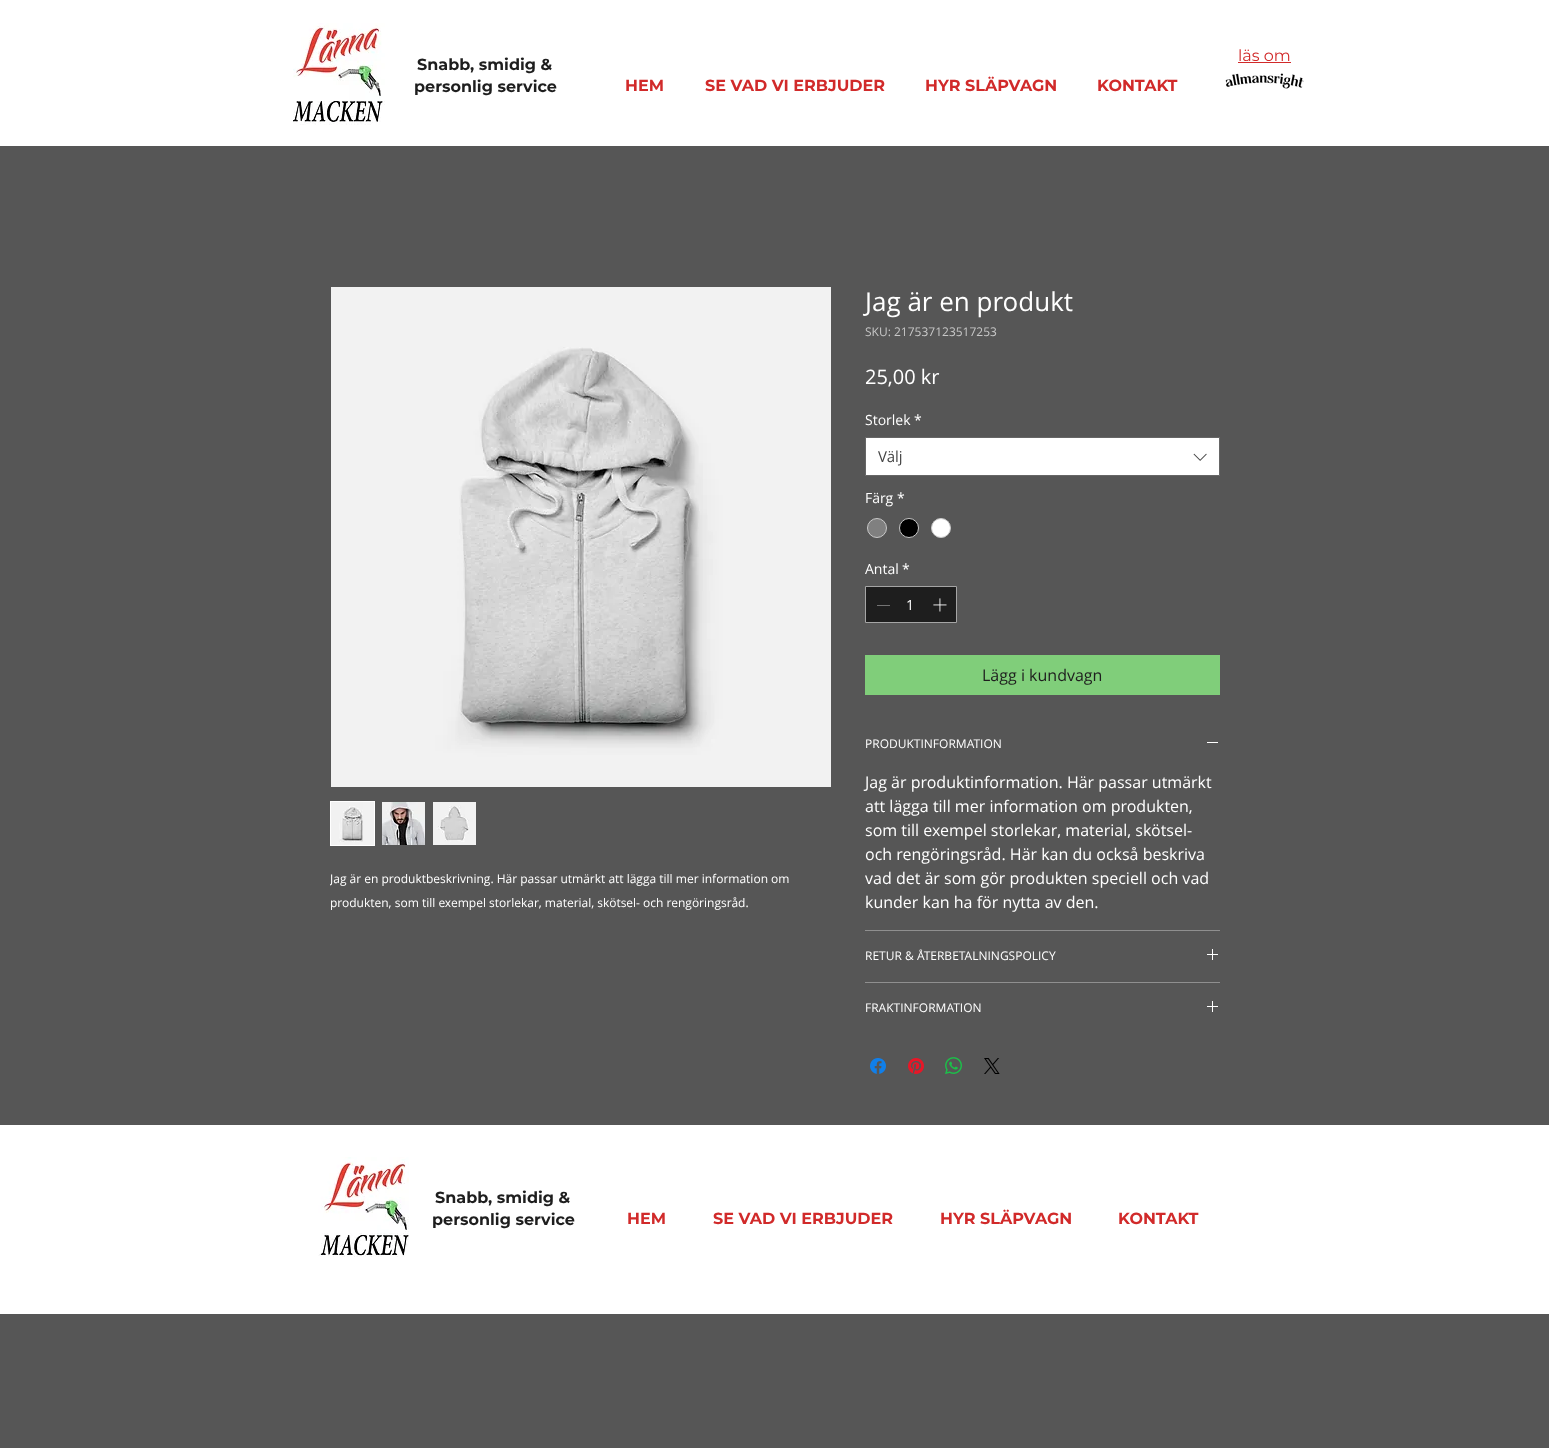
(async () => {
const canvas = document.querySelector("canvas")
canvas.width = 1549
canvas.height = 1448
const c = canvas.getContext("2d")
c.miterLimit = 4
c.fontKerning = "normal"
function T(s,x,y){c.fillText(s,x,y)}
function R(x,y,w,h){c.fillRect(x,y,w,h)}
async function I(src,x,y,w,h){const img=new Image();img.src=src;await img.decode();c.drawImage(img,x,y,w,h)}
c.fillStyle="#565656"
R(0,0,1549,1448)
c.fillStyle="#fff"
R(0,0,1549,146)
c.font="16px Montserrat"
c.fillStyle="#d12a2a"
T("läs om",1238,61)
R(1238,62,53,1)
await I("1.png",293,23,92,102)
c.font="bold 16px Montserrat"
c.fillStyle="#1e1e1e"
T("Snabb, smidig &",417,70)
T("personlig service",414,92)
c.fillStyle="#d12a2a"
T("HEM",625,91)
T("SE VAD VI ERBJUDER",705,91)
T("HYR SLÄPVAGN",925,91)
T("KONTAKT",1097,91)
await I("2.png",1225,73,79,16)
await I("3.png",331,287,500,500)
c.strokeStyle="#fff"
c.strokeRect(330.5,801.5,44,44)
await I("4.png",331,802,43,43)
await I("5.png",382,802,43,43)
await I("6.png",433,802,43,43)
c.save()
c.beginPath()
c.rect(330,866,500,48)
c.clip()
c.font="12px Open Sans"
c.fillStyle="#fff"
T("Jag är en produktbeskrivning. Här passar utmärkt att lägga till mer information om",330,883)
c.restore()
c.font="12px Open Sans"
c.fillStyle="#fff"
T("produkten, som till exempel storlekar, material, skötsel- och rengöringsråd.",330,907)
c.font="26px Open Sans"
T("Jag är en produkt",865,311)
c.font="12px Open Sans"
c.fillStyle="#c7c7c7"
T("SKU: 217537123517253",865,336)
c.font="20px Open Sans"
c.fillStyle="#fff"
T("25,00 kr",865,384)
c.font="14px Open Sans"
T("Storlek",865,425)
T("*",914,425)
c.beginPath()
c.rect(865.5,437.5,354,38)
c.fill()
c.strokeStyle="#666"
c.stroke()
c.font="15px Open Sans"
c.fillStyle="#444"
T("Välj",878,462)
await I("7.png",1193,453,14,8)
c.font="14px Open Sans"
c.fillStyle="#fff"
T("Färg",865,503)
T("*",897,503)
c.fillStyle="#808080"
c.beginPath()
c.arc(877,528,9.5,0,7)
c.fill()
c.strokeStyle="#c9c9c9"
c.stroke()
c.fillStyle="#000"
c.beginPath()
c.arc(909,528,9.5,0,7)
c.fill()
c.stroke()
c.fillStyle="#fff"
c.beginPath()
c.arc(941,528,9.5,0,7)
c.fill()
c.stroke()
T("Antal",865,574)
T("*",902,574)
c.fillStyle="#1e1e1e"
c.beginPath()
c.rect(865.5,586.5,91,36)
c.fill()
c.strokeStyle="#a5a5a5"
c.stroke()
c.fillStyle="#737373"
R(877,605,13,1)
c.fillStyle="#fff"
T("1",906,610)
await I("8.png",933,598,14,14)
c.fillStyle="#80ce7a"
R(865,655,355,40)
c.font="16px Open Sans"
c.fillStyle="#1e1e1e"
T("Lägg i kundvagn",982,681)
c.fillStyle="#8f8f8f"
R(865,930,355,1)
c.font="12px Open Sans"
c.fillStyle="#fff"
T("PRODUKTINFORMATION",865,748)
R(1207,742,11,1)
c.font="16px Open Sans"
T("Jag är produktinformation. Här passar utmärkt",865,788)
T("att lägga till mer information om produkten,",865,812)
T("som till exempel storlekar, material, skötsel-",865,836)
T("och rengöringsråd. Här kan du också beskriva",865,860)
T("vad det är som gör produkten speciell och vad",865,884)
T("kunder kan ha för nytta av den.",865,908)
c.fillStyle="#8f8f8f"
R(865,982,355,1)
c.font="12px Open Sans"
c.fillStyle="#fff"
T("RETUR & ÅTERBETALNINGSPOLICY",865,960)
await I("9.png",1207,949,11,11)
T("FRAKTINFORMATION",865,1012)
await I("9.png",1207,1001,11,11)
await I("10.png",870,1058,16,16)
await I("11.png",908,1058,16,16)
await I("12.png",945,1057,17,17)
await I("13.png",984,1058,16,16)
R(0,1125,1549,189)
await I("14.png",318,1157,91,100)
c.font="bold 16px Montserrat"
c.fillStyle="#1e1e1e"
T("Snabb, smidig &",435,1203)
T("personlig service",432,1225)
c.fillStyle="#d12a2a"
T("HEM",627,1224)
T("SE VAD VI ERBJUDER",713,1224)
T("HYR SLÄPVAGN",940,1224)
T("KONTAKT",1118,1224)
})()
